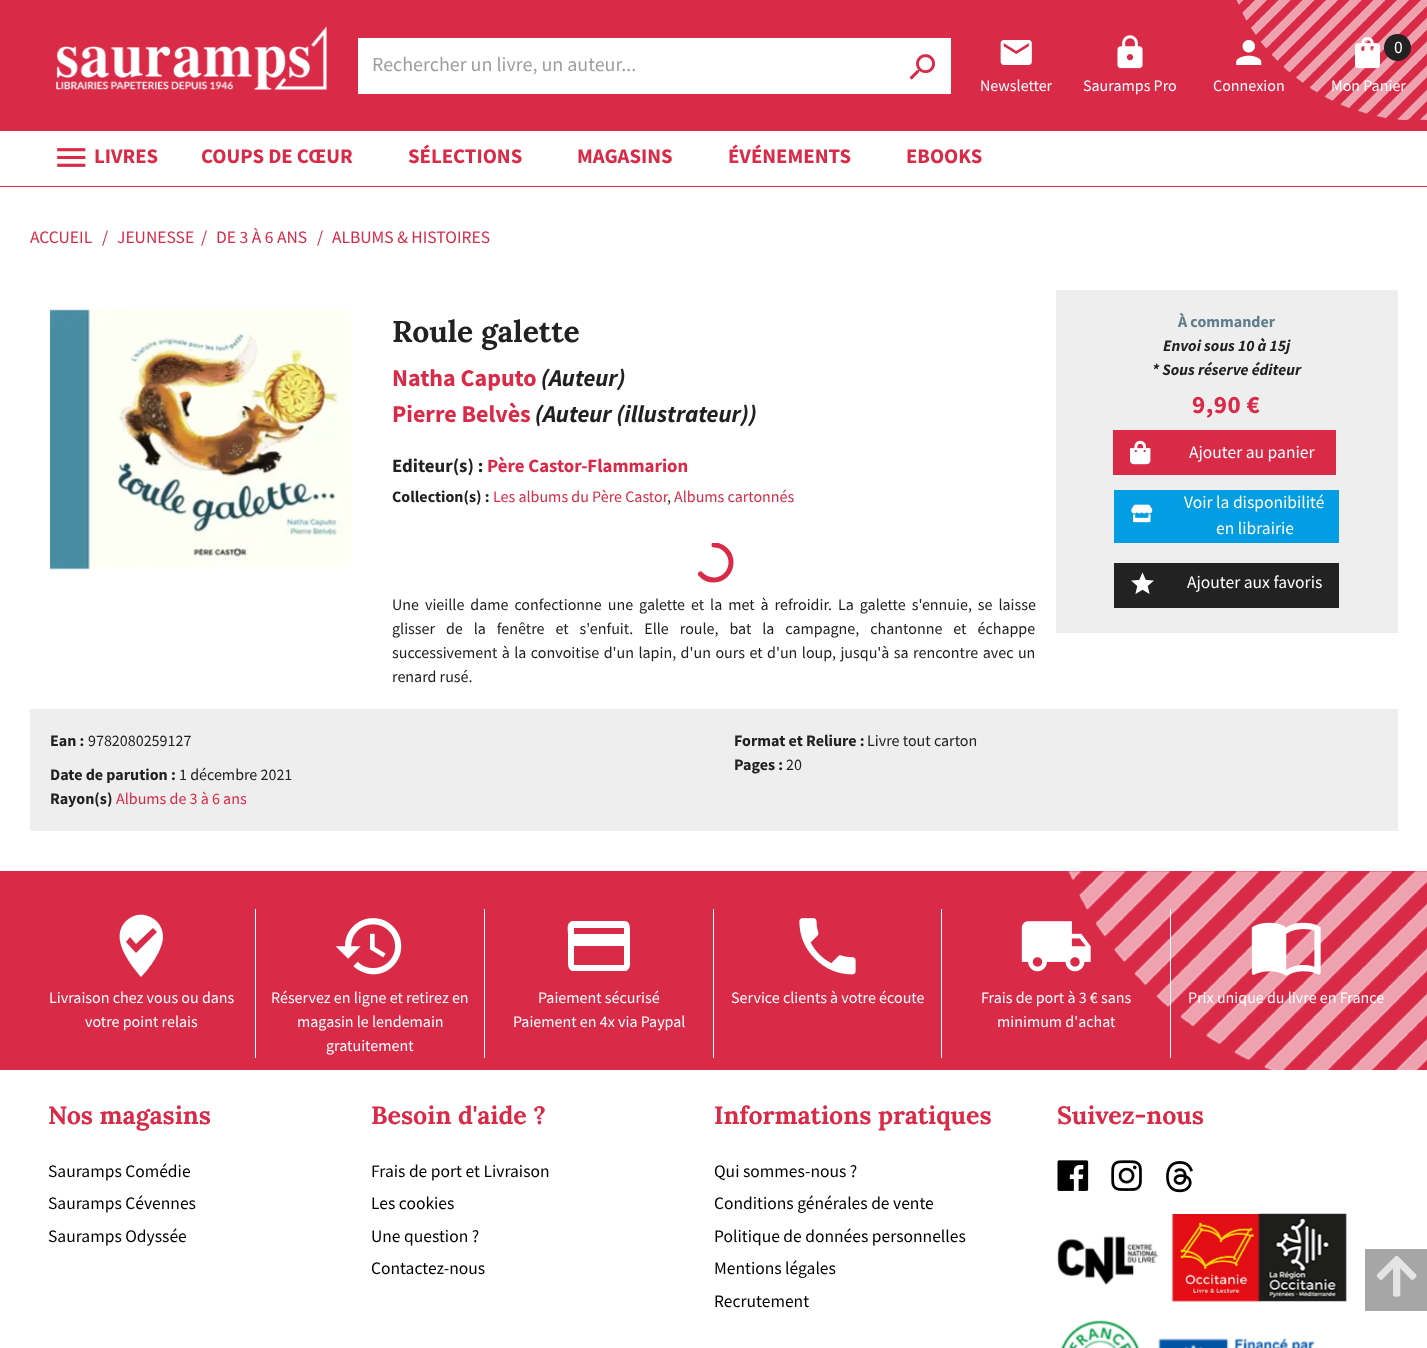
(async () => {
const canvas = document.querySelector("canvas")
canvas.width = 1427
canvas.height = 1348
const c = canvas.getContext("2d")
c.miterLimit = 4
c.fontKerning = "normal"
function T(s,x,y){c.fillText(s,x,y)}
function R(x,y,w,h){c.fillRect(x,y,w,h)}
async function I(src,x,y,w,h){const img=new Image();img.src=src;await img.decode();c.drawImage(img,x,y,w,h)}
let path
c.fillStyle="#fff"
R(0,0,1427,1348)
c.fillStyle="#d92a47"
R(0,0,1427,131)
c.font="16px Source Sans Pro"
c.fillStyle="#fff"
T("Mon Panier",1331,91)
await I("1.png",1236,0,191,120)
await I("2.png",56,26,271,64)
R(358,38,593,56)
c.font="20px Source Sans Pro"
c.fillStyle="#9e9e9e"
T("Rechercher un livre, un auteur...",372,71)
await I("3.png",909,54,26,26)
await I("4.png",1354,36,27,33)
c.fillStyle="#222"
c.beginPath()
c.arc(1397.5,47.5,13.5,0,7)
c.fill()
c.font="17.5px Source Sans Pro"
c.fillStyle="#fff"
T("0",1394,53)
await I("5.png",1000,40,32,25)
c.font="16px Source Sans Pro"
T("Newsletter",980,91)
await I("6.png",1117,35,26,34)
T("Sauramps Pro",1083,91)
await I("7.png",1236,40,26,25)
T("Connexion",1213,91)
c.fillStyle="#d92a47"
R(0,186,1427,1)
await I("8.png",57,148,29,19)
c.font="bold 20.75px Source Sans Pro"
T("LIVRES",94,163)
T("COUPS DE CŒUR",201,163)
T("SÉLECTIONS",408,163)
T("MAGASINS",577,163)
T("ÉVÉNEMENTS",728,163)
T("EBOOKS",906,163)
c.font="17.5px Source Sans Pro"
T("ACCUEIL",30,243)
T("/",102,243)
T("JEUNESSE",117,243)
T("/",201,243)
T("DE 3 À 6 ANS",216,243)
T("/",317,243)
T("ALBUMS & HISTOIRES",332,243)
await I("9.png",50,309,303,261)
c.font="bold 30px Lora"
c.fillStyle="#212121"
T("Roule galette",392,342)
c.font="bold 24px Source Sans Pro"
c.fillStyle="#d92a47"
T("Natha Caputo",392,386)
c.font="italic bold 24px Source Sans Pro"
c.fillStyle="#212121"
T("(Auteur)",541,386)
c.font="bold 24px Source Sans Pro"
c.fillStyle="#d92a47"
T("Pierre Belvès",392,422)
c.font="italic bold 24px Source Sans Pro"
c.fillStyle="#212121"
T("(Auteur (illustrateur))",535,422)
c.font="bold 18.75px Source Sans Pro"
T("Editeur(s) :",392,472)
c.fillStyle="#d92a47"
T("Père Castor-Flammarion",487,472)
c.font="bold 16px Source Sans Pro"
c.fillStyle="#212121"
T("Collection(s) :",392,502)
c.font="16px Source Sans Pro"
c.fillStyle="#d92a47"
T("Les albums du Père Castor",493,502)
c.fillStyle="#212121"
T(",",667,502)
c.fillStyle="#d92a47"
T("Albums cartonnés",674,502)
c.save()
c.beginPath()
c.rect(694,543,40,40)
c.clip()
path = new Path2D("M714 545c9.5 0 17 8 17 17.5c0 9.5-7.5 17.5-17 17.5c-5.5 0-10.5-2.5-13.5-6")
c.strokeStyle="#d92a47"
c.lineWidth=5
c.lineCap="round"
c.stroke(path)
c.restore()
c.wordSpacing="2.75px"
c.fillStyle="#212121"
T("Une vieille dame confectionne une galette et la met à refroidir. La galette s'ennuie, se laisse",392,610)
c.wordSpacing="7.75px"
T("glisser de la fenêtre et s'enfuit. Elle roule, bat la campagne, chantonne et échappe",392,634)
c.wordSpacing="1.25px"
T("successivement à la convoitise d'un lapin, d'un ours et d'un loup, jusqu'à sa rencontre avec un",392,658)
c.wordSpacing="0px"
T("renard rusé.",392,682)
c.fillStyle="#eee"
R(1056,290,342,343)
c.font="bold 16px Source Sans Pro"
c.fillStyle="#607d8b"
T("À commander",1178,327)
c.font="italic bold 16px Source Sans Pro"
c.fillStyle="#212121"
T("Envoi sous 10 à 15j",1163,351)
T("* Sous réserve éditeur",1152,375)
c.letterSpacing="0.5px"
c.font="bold 25px Source Sans Pro"
c.fillStyle="#d92a47"
T("9,90 €",1192,413)
R(1113,430,223,45)
await I("10.png",1130,440,21,25)
c.letterSpacing="0px"
c.font="17.5px Source Sans Pro"
c.fillStyle="#fff"
T("Ajouter au panier",1189,458)
c.fillStyle="#029de2"
R(1114,490,225,53)
await I("11.png",1131,504,22,19)
c.fillStyle="#fff"
T("Voir la disponibilité",1184,508)
T("en librairie",1216,534)
c.fillStyle="#222"
R(1114,563,225,45)
await I("12.png",1131,572,23,22)
c.fillStyle="#fff"
T("Ajouter aux favoris",1187,588)
c.fillStyle="#eee"
R(30,709,1368,122)
c.font="bold 16px Source Sans Pro"
c.fillStyle="#212121"
T("Ean :",50,746)
c.font="16px Source Sans Pro"
T("9782080259127",88,746)
c.font="bold 16px Source Sans Pro"
T("Date de parution :",50,780)
c.font="16px Source Sans Pro"
T("1 décembre 2021",179,780)
c.font="bold 16px Source Sans Pro"
T("Rayon(s)",50,804)
c.font="16px Source Sans Pro"
c.fillStyle="#d92a47"
T("Albums de 3 à 6 ans",116,804)
c.font="bold 16px Source Sans Pro"
c.fillStyle="#212121"
T("Format et Reliure :",734,746)
c.font="16px Source Sans Pro"
T("Livre tout carton",867,746)
c.font="bold 16px Source Sans Pro"
T("Pages :",734,770)
c.font="16px Source Sans Pro"
T("20",786,770)
c.fillStyle="#a6a6a6"
R(1365,1249,62,62)
await I("13.png",1376,1255,41,42)
c.fillStyle="#d92a47"
R(0,871,1427,199)
c.fillStyle="#fff"
R(1170,909,1,149)
await I("17.png",1021,921,70,51)
T("Frais de port à 3 € sans",981,1003)
T("minimum d'achat",997,1027)
await I("18.png",1251,922,70,54)
T("Prix unique du livre en France",1188,1003)
await I("14.png",1068,871,359,199)
R(255,909,1,149)
path = new Path2D("M136 953l21-21l-4-4l-17 16l-6-7l-4 5zm-10-32c14-14 38-3 37 17c-1 13-13 30-22 39c-11-13-32-39-15-56z")
c.fill(path)
T("Livraison chez vous ou dans",49,1003)
T("votre point relais",85,1027)
R(484,909,1,149)
await I("15.png",335,918,67,57)
T("Réservez en ligne et retirez en",271,1003)
T("magasin le lendemain",297,1027)
T("gratuitement",326,1051)
R(713,909,1,149)
path = new Path2D("M624 934v-6h-50v6zm0 31v-19h-50v19zm0-44c7 0 6 8 6 13v25c0 4 1 10-4 12h-52c-7 0-6-8-6-12v-25c0-4-2-11 4-13z")
c.fill(path)
T("Paiement sécurisé",538,1003)
T("Paiement en 4x via Paypal",513,1027)
R(941,909,1,149)
await I("16.png",799,918,57,57)
T("Service clients à votre écoute",731,1003)
c.font="bold 25px Lora"
c.fillStyle="#d92a47"
T("Nos magasins",48,1124)
c.font="17.5px Source Sans Pro"
c.fillStyle="#000"
T("Sauramps Comédie",48,1177)
T("Sauramps Cévennes",48,1209)
T("Sauramps Odyssée",48,1242)
c.font="bold 25px Lora"
c.fillStyle="#d92a47"
T("Besoin d'aide ?",371,1124)
c.font="17.5px Source Sans Pro"
c.fillStyle="#000"
T("Frais de port et Livraison",371,1177)
T("Les cookies",371,1209)
T("Une question ?",371,1242)
T("Contactez-nous",371,1274)
c.font="bold 25px Lora"
c.fillStyle="#d92a47"
T("Informations pratiques",714,1124)
c.font="17.5px Source Sans Pro"
c.fillStyle="#000"
T("Qui sommes-nous ?",714,1177)
T("Conditions générales de vente",714,1209)
T("Politique de données personnelles",714,1242)
T("Mentions légales",714,1274)
T("Recrutement",714,1307)
c.font="bold 25px Lora"
c.fillStyle="#d92a47"
T("Suivez-nous",1057,1124)
await I("19.png",1057,1160,32,31)
await I("20.png",1111,1160,31,31)
await I("21.png",1166,1161,27,32)
await I("22.png",1057,1236,102,49)
await I("23.png",1172,1214,89,88)
await I("24.png",1258,1213,89,89)
await I("25.png",1060,1320,255,28)
})()
